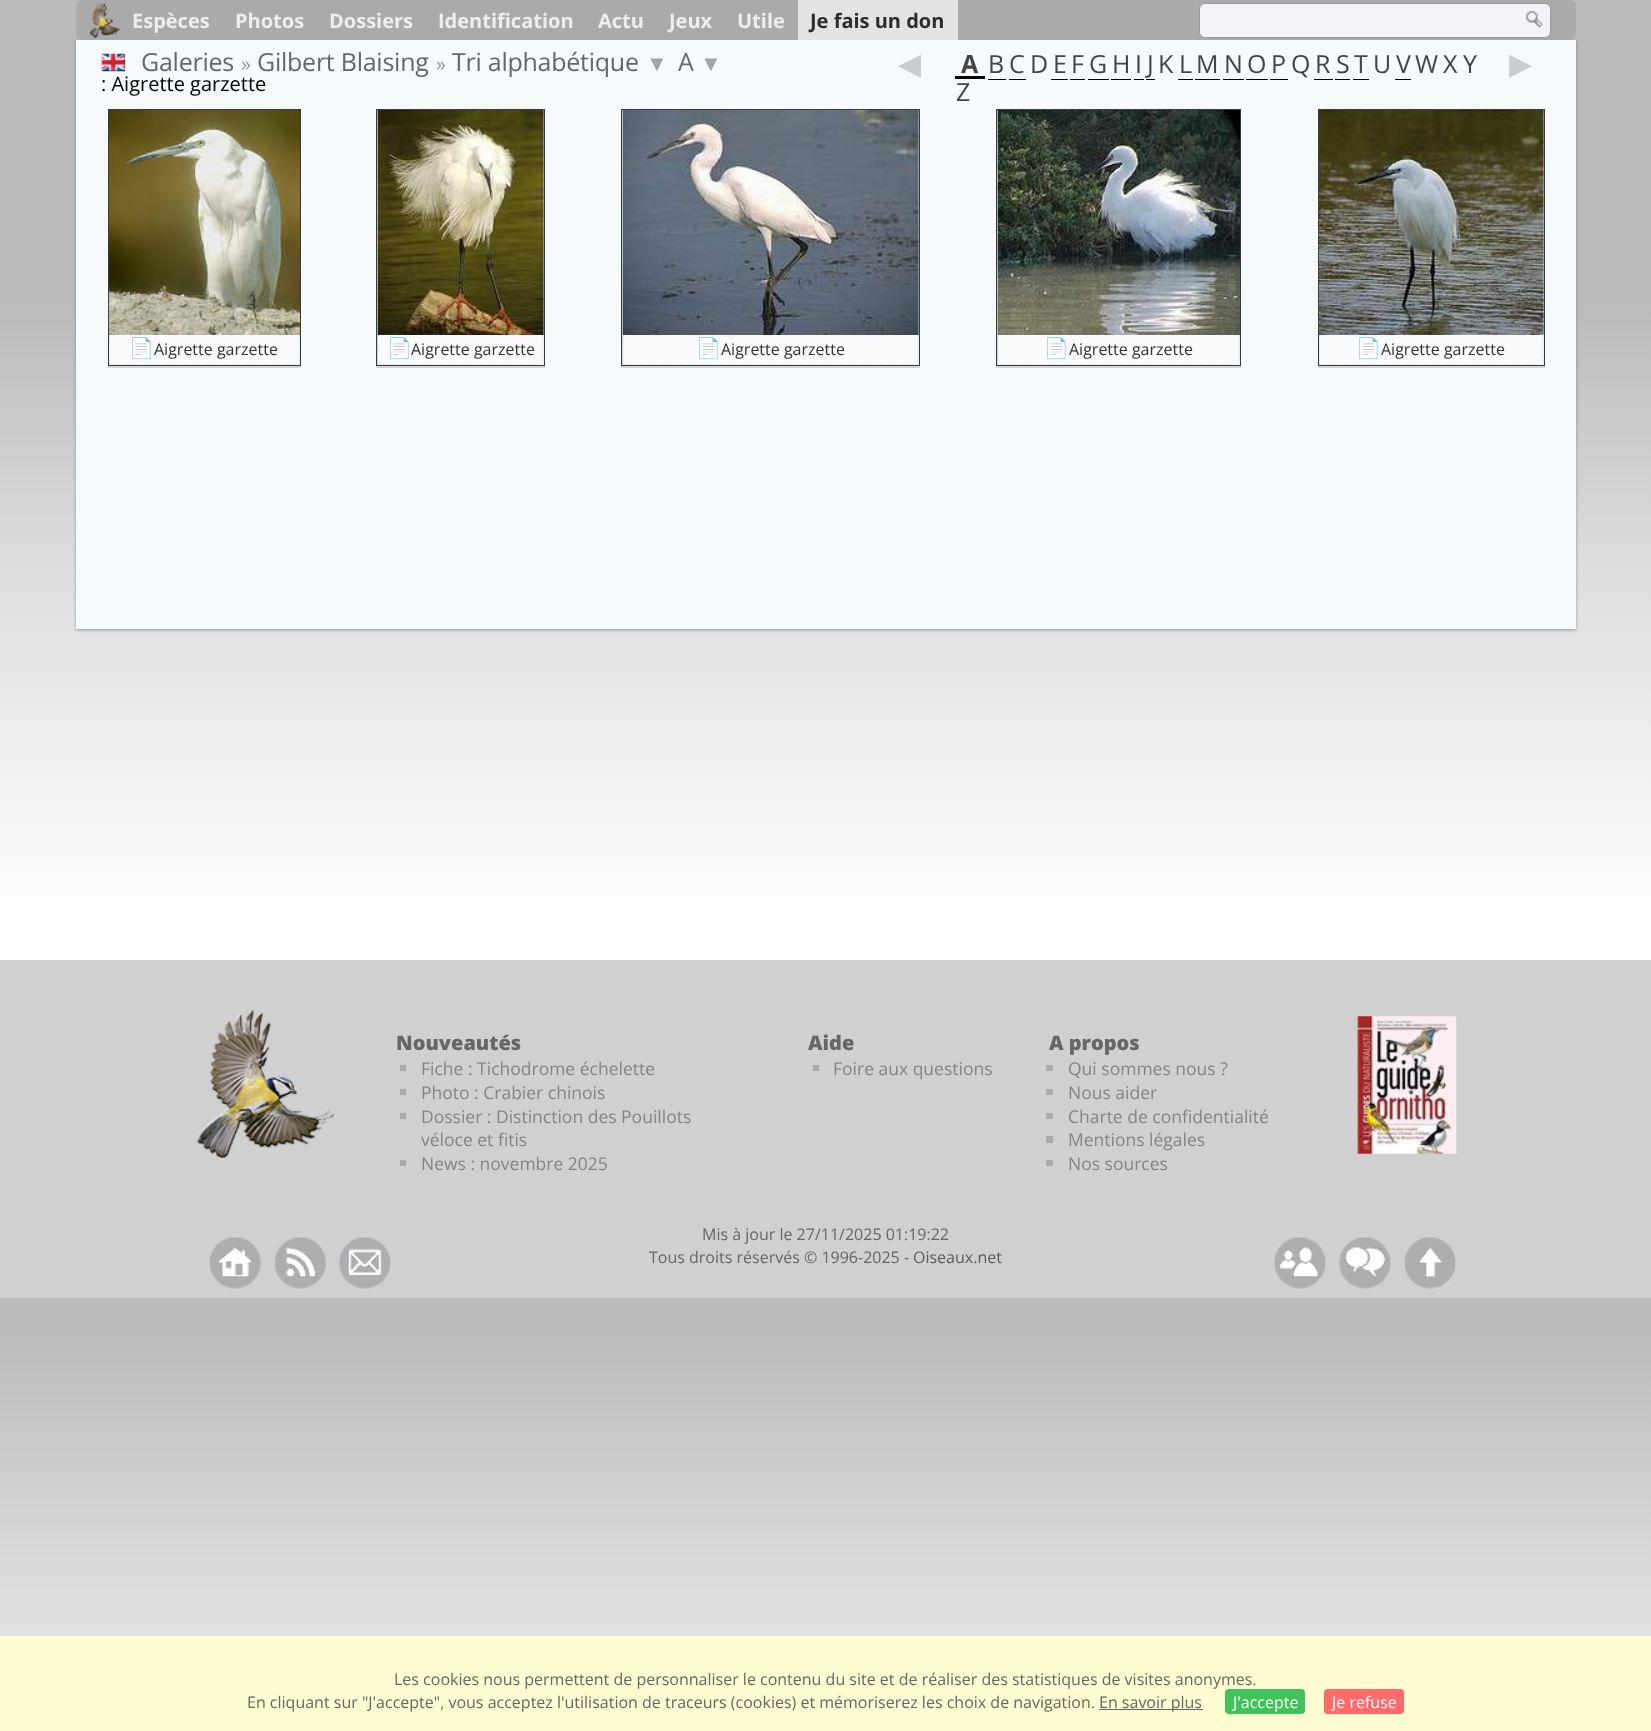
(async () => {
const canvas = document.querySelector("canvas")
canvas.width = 1651
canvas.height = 1731
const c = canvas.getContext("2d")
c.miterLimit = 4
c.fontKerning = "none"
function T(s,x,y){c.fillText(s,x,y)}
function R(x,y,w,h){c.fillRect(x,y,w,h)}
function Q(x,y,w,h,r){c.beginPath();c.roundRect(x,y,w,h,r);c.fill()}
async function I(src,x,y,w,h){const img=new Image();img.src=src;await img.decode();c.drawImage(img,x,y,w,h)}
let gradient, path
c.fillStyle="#fff"
R(0,0,1651,1731)
gradient = c.createLinearGradient(826,0,826,1026)
gradient.addColorStop(0,"#bbb")
gradient.addColorStop(.3,"#bbb")
gradient.addColorStop(.55,"#ddd")
gradient.addColorStop(.9,"#fff")
gradient.addColorStop(1,"#fff")
c.fillStyle = gradient
R(0,0,1651,897)
gradient = c.createLinearGradient(826,1026,826,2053)
gradient.addColorStop(0,"#bbb")
gradient.addColorStop(.3,"#bbb")
gradient.addColorStop(.55,"#ddd")
gradient.addColorStop(.9,"#fff")
gradient.addColorStop(1,"#fff")
c.fillStyle = gradient
R(0,1298,1651,338)
c.fillStyle="#0000003d"
c.filter="blur(1px)"
c.beginPath()
c.rect(76,41,1500,589)
c.fill()
c.filter="none"
c.fillStyle="#0000001f"
c.filter="blur(2px)"
c.beginPath()
c.rect(76,41,1500,589)
c.fill()
c.filter="none"
c.fillStyle="#aaa"
Q(76,0,1500,40,6)
await I("1.png",89,3,31,35)
c.font="bold 20px Open Sans"
c.fillStyle="#eee"
T("Espèces",132,28)
T("Photos",235,28)
T("Dossiers",329,28)
T("Identification",438,28)
T("Actu",598,28)
T("Jeux",669,28)
T("Utile",737,28)
c.fillStyle="#e3e3e3"
R(798,0,160,40)
c.fillStyle="#2c2c2c"
T("Je fais un don",810,28)
c.fillStyle="#f3f3f8"
c.beginPath()
c.roundRect(1199.5,3.5,351,34,5.5)
c.fill()
c.strokeStyle="#999"
c.stroke()
await I("2.png",1526,11,17,17)
c.fillStyle="#f7fafc"
R(76,40,1500,589)
await I("3.png",101,52,25,20)
c.letterSpacing="-0.25px"
c.font="25px Open Sans"
c.fillStyle="#666"
T("Galeries",141,71)
c.letterSpacing="0px"
c.font="20px Open Sans"
c.fillStyle="#999"
T("»",241,71)
c.letterSpacing="-0.25px"
c.font="25px Open Sans"
c.fillStyle="#666"
T("Gilbert Blaising",257,71)
c.letterSpacing="0px"
c.font="20px Open Sans"
c.fillStyle="#999"
T("»",436,71)
c.letterSpacing="-0.25px"
c.font="25px Open Sans"
c.fillStyle="#666"
T("Tri alphabétique",452,71)
c.letterSpacing="0px"
c.font="22px Liberation Sans"
c.fillStyle="#a3a3a3"
T("▼",646,71)
c.letterSpacing="-0.25px"
c.font="25px Open Sans"
c.fillStyle="#666"
T("A",678,71)
c.letterSpacing="0px"
c.font="22px Liberation Sans"
c.fillStyle="#a3a3a3"
T("▼",700,71)
c.font="20px Open Sans"
c.fillStyle="#000"
T(": Aigrette garzette",101,91)
c.font="30px DejaVu Sans"
c.fillStyle="#caccce"
T("◀",898,74)
c.fillStyle="#000"
R(955,76,30,3)
c.font="bold 25px Open Sans"
c.fillStyle="#434444"
T("A",961,73)
c.fillStyle="#000"
R(988,79,18,1)
c.font="25px Open Sans"
c.fillStyle="#434444"
T("B",988,73)
c.fillStyle="#000"
R(1009,79,17,1)
c.fillStyle="#434444"
T("C",1009,73)
c.letterSpacing="-0.25px"
T("D",1030,73)
c.fillStyle="#000"
R(1051,79,17,1)
c.letterSpacing="0px"
c.fillStyle="#434444"
T("E",1053,73)
c.fillStyle="#000"
R(1070,79,15,1)
c.fillStyle="#434444"
T("F",1071,73)
c.fillStyle="#000"
R(1088,79,21,1)
c.fillStyle="#434444"
T("G",1089,73)
c.fillStyle="#000"
R(1111,79,20,1)
c.fillStyle="#434444"
T("H",1112,73)
c.fillStyle="#000"
R(1134,79,10,1)
c.fillStyle="#434444"
T("I",1135,73)
c.fillStyle="#000"
R(1146,79,9,1)
c.fillStyle="#434444"
T("J",1147,73)
c.letterSpacing="-0.25px"
T("K",1158,73)
c.fillStyle="#000"
R(1178,79,15,1)
c.letterSpacing="0px"
c.fillStyle="#434444"
T("L",1179,73)
c.fillStyle="#000"
R(1195,79,25,1)
c.fillStyle="#434444"
T("M",1196,73)
c.fillStyle="#000"
R(1223,79,21,1)
c.fillStyle="#434444"
T("N",1224,73)
c.fillStyle="#000"
R(1246,79,22,1)
c.fillStyle="#434444"
T("O",1247,73)
c.fillStyle="#000"
R(1270,79,18,1)
c.fillStyle="#434444"
T("P",1271,73)
c.letterSpacing="-0.25px"
T("Q",1291,73)
c.fillStyle="#000"
R(1314,79,19,1)
c.letterSpacing="0px"
c.fillStyle="#434444"
T("R",1315,73)
c.fillStyle="#000"
R(1335,79,15,1)
c.fillStyle="#434444"
T("S",1336,73)
c.fillStyle="#000"
R(1353,79,16,1)
c.fillStyle="#434444"
T("T",1354,73)
c.letterSpacing="-0.25px"
T("U",1373,73)
c.fillStyle="#000"
R(1395,79,16,1)
c.letterSpacing="0px"
c.fillStyle="#434444"
T("V",1396,73)
c.letterSpacing="-0.25px"
T("W",1415,73)
T("X",1443,73)
T("Y",1463,73)
T("Z",956,101)
c.letterSpacing="0px"
c.font="30px DejaVu Sans"
c.fillStyle="#caccce"
T("▶",1509,74)
c.fillStyle="#00000026"
c.filter="blur(0.5px)"
c.beginPath()
c.rect(108,110,193,258)
c.fill()
c.filter="none"
c.strokeStyle="#343c43"
c.strokeRect(108.5,109.5,192,256)
await I("4.png",108,110,192,225)
c.fillStyle="#f9fafb"
R(109,335,191,30)
c.save()
c.beginPath()
c.rect(109,110,191,255)
c.clip()
path = new Path2D("M299.5 335v30")
c.strokeStyle="#dadada"
c.lineWidth=1.2
c.setLineDash([1.25,1.25])
c.stroke(path)
path = new Path2D("M109 364.5h191")
c.stroke(path)
path = new Path2D("M109.5 335v30")
c.stroke(path)
c.restore()
c.font="20px Noto Color Emoji"
c.fillStyle="#333"
T("📄",129,355)
c.font="16px Open Sans"
T("Aigrette garzette",154,355)
c.fillStyle="#00000026"
c.filter="blur(0.5px)"
c.beginPath()
c.rect(376,110,169,258)
c.fill()
c.filter="none"
c.strokeRect(376.5,109.5,168,256)
await I("5.png",377,110,167,225)
c.fillStyle="#f9fafb"
R(378,335,166,30)
path = new Path2D("M543 335v30")
c.strokeStyle="#dadada"
c.lineWidth=1.2
c.setLineDash([1.25,1.25])
c.stroke(path)
c.save()
c.beginPath()
c.rect(378,110,166,255)
c.clip()
path = new Path2D("M377.5 364.5h166.5")
c.stroke(path)
path = new Path2D("M378 335v30")
c.stroke(path)
c.restore()
c.font="20px Noto Color Emoji"
c.fillStyle="#333"
T("📄",387,355)
c.font="16px Open Sans"
T("Aigrette garzette",411,355)
c.fillStyle="#00000026"
c.filter="blur(0.5px)"
c.beginPath()
c.rect(621,110,299,258)
c.fill()
c.filter="none"
c.strokeStyle="#343c43"
c.lineWidth=1
c.setLineDash([])
c.strokeRect(621.5,109.5,298,256)
await I("6.png",622,110,297,225)
c.fillStyle="#f9fafb"
R(623,335,296,30)
path = new Path2D("M918 335v30")
c.strokeStyle="#dadada"
c.lineWidth=1.2
c.setLineDash([1.25,1.25])
c.stroke(path)
c.save()
c.beginPath()
c.rect(623,110,296,255)
c.clip()
path = new Path2D("M622.5 364.5h296.5")
c.stroke(path)
path = new Path2D("M623 335v30")
c.stroke(path)
c.restore()
c.font="20px Noto Color Emoji"
c.fillStyle="#333"
T("📄",696,355)
c.font="16px Open Sans"
T("Aigrette garzette",721,355)
c.fillStyle="#00000026"
c.filter="blur(0.5px)"
c.beginPath()
c.rect(996,110,245,258)
c.fill()
c.filter="none"
c.strokeStyle="#343c43"
c.lineWidth=1
c.setLineDash([])
c.strokeRect(996.5,109.5,244,256)
await I("7.png",997,110,243,225)
c.fillStyle="#f9fafb"
R(998,335,242,30)
c.save()
c.beginPath()
c.rect(998,110,242,255)
c.clip()
path = new Path2D("M1239.5 335v30")
c.strokeStyle="#dadada"
c.lineWidth=1.2
c.setLineDash([1.25,1.25])
c.stroke(path)
path = new Path2D("M997.5 364.5h242.5")
c.stroke(path)
path = new Path2D("M998 335v30")
c.stroke(path)
c.restore()
c.font="20px Noto Color Emoji"
c.fillStyle="#333"
T("📄",1044,355)
c.font="16px Open Sans"
T("Aigrette garzette",1069,355)
c.fillStyle="#00000026"
c.filter="blur(0.5px)"
c.beginPath()
c.rect(1318,110,227,258)
c.fill()
c.filter="none"
c.strokeRect(1318.5,109.5,226,256)
await I("8.png",1318,110,226,225)
c.fillStyle="#f9fafb"
R(1319,335,225,30)
path = new Path2D("M1543 335v30")
c.strokeStyle="#dadada"
c.lineWidth=1.2
c.setLineDash([1.25,1.25])
c.stroke(path)
c.save()
c.beginPath()
c.rect(1319,110,225,255)
c.clip()
path = new Path2D("M1319 364.5h225")
c.stroke(path)
path = new Path2D("M1319.5 335v30")
c.stroke(path)
c.restore()
c.font="20px Noto Color Emoji"
c.fillStyle="#333"
T("📄",1356,355)
c.font="16px Open Sans"
T("Aigrette garzette",1381,355)
c.fillStyle="#d0d0d0"
R(0,960,1651,338)
await I("9.png",197,1010,137,148)
c.font="800 20px Open Sans"
c.fillStyle="#666"
T("Nouveautés",396,1050)
c.fillStyle="#aaa"
R(400,1065,6,6)
c.font="17.5px Open Sans"
c.fillStyle="#848484"
T("Fiche : Tichodrome échelette",421,1075)
c.fillStyle="#aaa"
R(400,1089,6,6)
c.fillStyle="#848484"
T("Photo : Crabier chinois",421,1099)
c.fillStyle="#aaa"
R(400,1113,6,6)
c.fillStyle="#848484"
T("Dossier : Distinction des Pouillots",421,1123)
T("véloce et fitis",421,1146)
c.fillStyle="#aaa"
R(400,1160,6,6)
c.fillStyle="#848484"
T("News : novembre 2025",421,1170)
c.font="800 20px Open Sans"
c.fillStyle="#666"
T("Aide",808,1050)
c.fillStyle="#aaa"
R(813,1065,6,6)
c.font="17.5px Open Sans"
c.fillStyle="#848484"
T("Foire aux questions",833,1075)
c.font="800 20px Open Sans"
c.fillStyle="#666"
T("A propos",1049,1050)
c.fillStyle="#aaa"
R(1046,1065,7,6)
c.font="17.5px Open Sans"
c.fillStyle="#848484"
T("Qui sommes nous ?",1068,1075)
c.fillStyle="#aaa"
R(1046,1089,7,6)
c.fillStyle="#848484"
T("Nous aider",1068,1099)
c.fillStyle="#aaa"
R(1046,1113,7,6)
c.fillStyle="#848484"
T("Charte de confidentialité",1068,1123)
c.fillStyle="#aaa"
R(1046,1136,7,7)
c.fillStyle="#848484"
T("Mentions légales",1068,1146)
c.fillStyle="#aaa"
R(1046,1160,7,6)
c.fillStyle="#848484"
T("Nos sources",1068,1170)
await I("10.png",1357,1016,100,138)
await I("11.png",209,1237,53,52)
await I("12.png",275,1237,52,52)
await I("13.png",338,1237,53,52)
c.font="16px Open Sans"
c.fillStyle="#666"
T("Mis à jour le 27/11/2025 01:19:22",702,1240)
T("Tous droits réservés © 1996-2025 -",649,1263)
c.fillStyle="#5b5b5b"
T("Oiseaux.net",913,1263)
await I("14.png",1273,1237,53,52)
await I("15.png",1338,1237,53,52)
await I("16.png",1404,1237,52,52)
c.fillStyle="#fffcd1"
R(0,1636,1651,95)
c.fillStyle="#666"
T("Les cookies nous permettent de personnaliser le contenu du site et de réaliser des statistiques de visites anonymes.",394,1685)
T("En cliquant sur \"J'accepte\", vous acceptez l'utilisation de traceurs (cookies) et mémoriserez les choix de navigation.",247,1708)
R(1099,1709,104,1)
T("En savoir plus",1099,1708)
c.fillStyle="#3fc35a"
Q(1225,1689,80,25,4)
c.fillStyle="#fff"
T("J'accepte",1233,1708)
c.fillStyle="#ff6b6b"
Q(1324,1689,80,25,4)
c.fillStyle="#fff"
T("Je refuse",1332,1708)
})()
